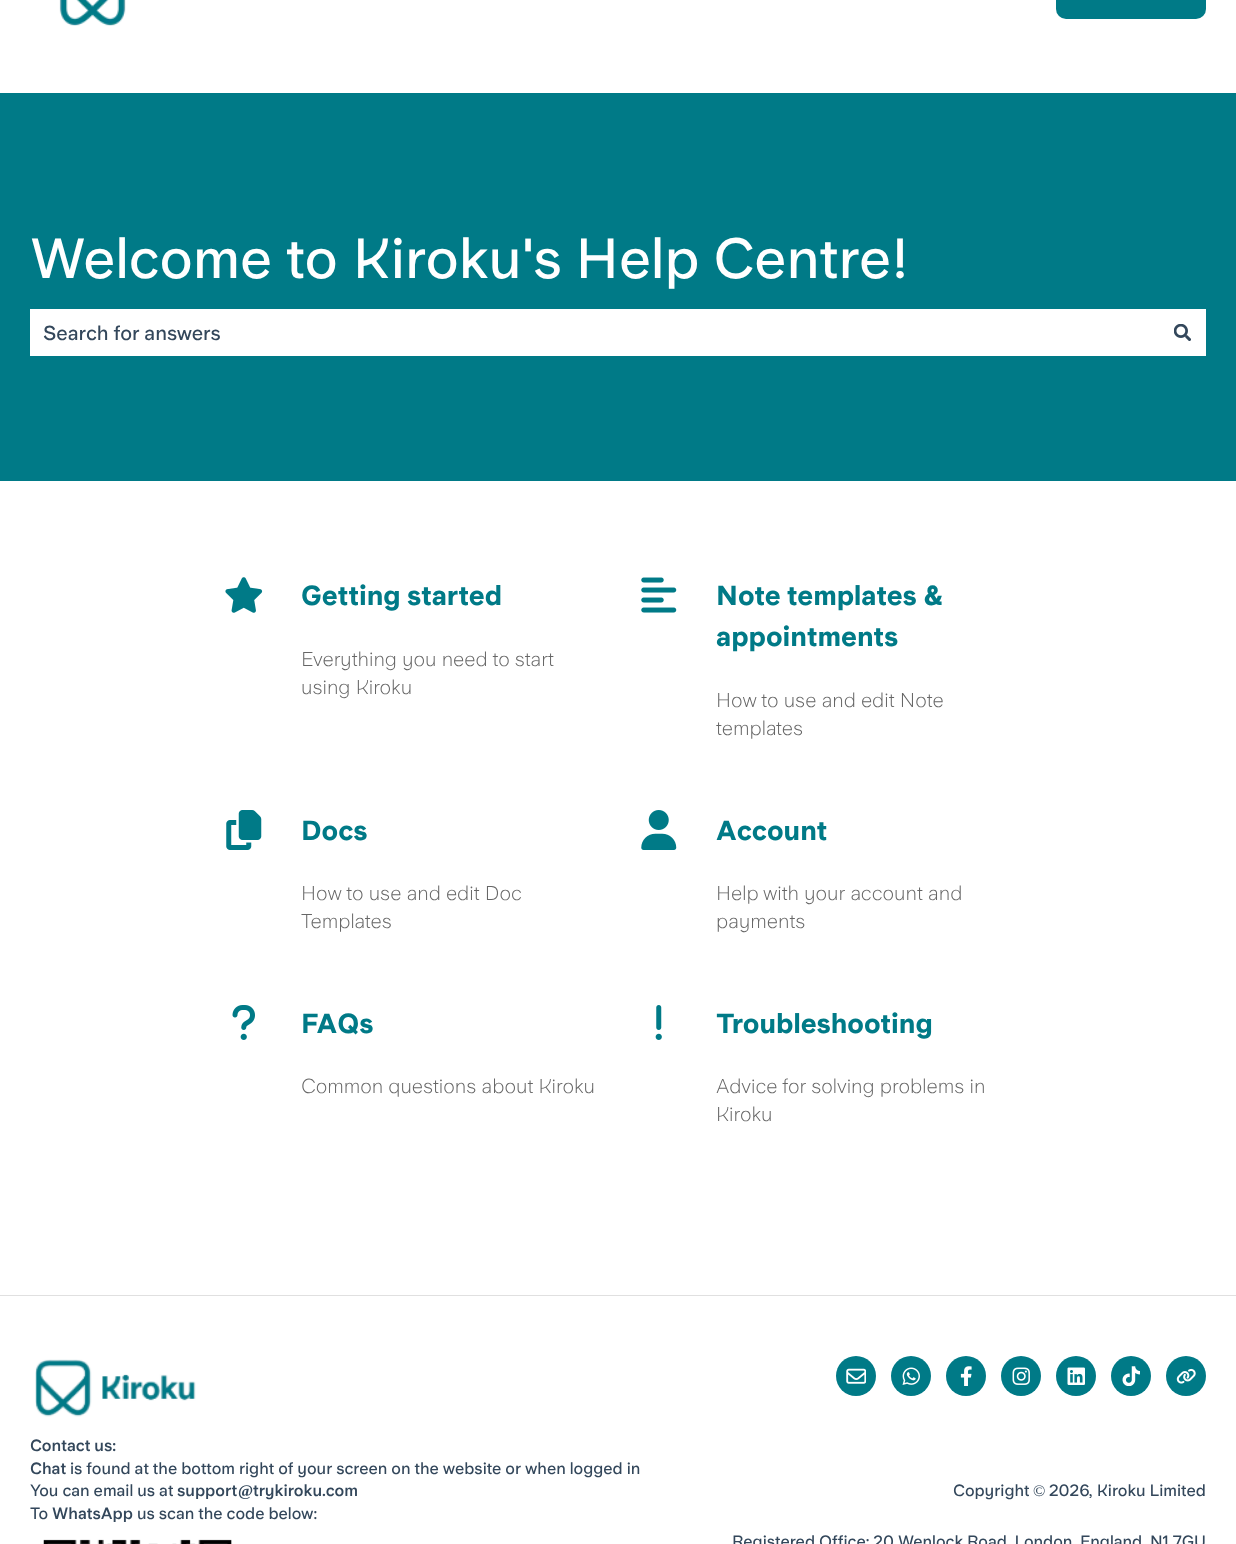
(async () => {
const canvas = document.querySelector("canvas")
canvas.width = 1236
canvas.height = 1544
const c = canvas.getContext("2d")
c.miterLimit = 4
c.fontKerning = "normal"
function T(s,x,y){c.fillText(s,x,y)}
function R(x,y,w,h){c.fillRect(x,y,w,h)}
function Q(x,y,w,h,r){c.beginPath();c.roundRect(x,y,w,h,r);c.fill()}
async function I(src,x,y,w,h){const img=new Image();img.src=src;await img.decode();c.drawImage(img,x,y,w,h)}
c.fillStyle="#fff"
R(0,0,1236,1544)
await I("1.png",59,0,67,26)
c.fillStyle="#007a87"
Q(1056,-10,150,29,10)
R(0,93,1236,388)
c.font="56.25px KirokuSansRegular"
c.fillStyle="#fff"
T("Welcome to Kiroku's Help Centre!",30,278)
R(30,309,1176,47)
c.font="20px KirokuSansRegular"
c.fillStyle="#33475b"
T("Search for answers",43,340)
await I("2.png",1174,324,17,17)
await I("3.png",225,577,38,36)
c.font="900 27.5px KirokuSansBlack"
c.fillStyle="#007a87"
T("Getting started",301,605)
c.font="300 20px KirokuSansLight"
c.fillStyle="#666"
T("Everything you need to start",301,666)
T("using Kiroku",301,694)
await I("4.png",641,577,36,36)
c.font="900 27.5px KirokuSansBlack"
c.fillStyle="#007a87"
T("Note templates &",716,605)
T("appointments",716,646)
c.font="300 20px KirokuSansLight"
c.fillStyle="#666"
T("How to use and edit Note",716,707)
T("templates",716,735)
await I("5.png",226,810,36,40)
c.font="900 27.5px KirokuSansBlack"
c.fillStyle="#007a87"
T("Docs",301,840)
c.font="300 20px KirokuSansLight"
c.fillStyle="#666"
T("How to use and edit Doc",301,900)
T("Templates",301,928)
await I("6.png",641,810,36,40)
c.font="900 27.5px KirokuSansBlack"
c.fillStyle="#007a87"
T("Account",716,840)
c.font="300 20px KirokuSansLight"
c.fillStyle="#666"
T("Help with your account and",716,900)
T("payments",716,928)
await I("7.png",232,1005,23,35)
c.font="900 27.5px KirokuSansBlack"
c.fillStyle="#007a87"
T("FAQs",301,1033)
c.font="300 20px KirokuSansLight"
c.fillStyle="#666"
T("Common questions about Kiroku",301,1093)
await I("8.png",655,1005,7,35)
c.font="900 27.5px KirokuSansBlack"
c.fillStyle="#007a87"
T("Troubleshooting",716,1033)
c.font="300 20px KirokuSansLight"
c.fillStyle="#666"
T("Advice for solving problems in",716,1093)
T("Kiroku",716,1121)
c.fillStyle="#e0e0e0"
R(0,1295,1236,1)
await I("9.png",35,1359,161,58)
c.font="bold 16.25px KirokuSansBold"
c.fillStyle="#33475b"
T("Contact us:",30,1451)
T("Chat",30,1474)
c.font="16.25px KirokuSansRegular"
T("is found at the bottom right of your screen on the website or when logged in",70,1474)
T("You can email us at",30,1496)
c.font="bold 16.25px KirokuSansBold"
T("support",177,1496)
c.font="bold 16.25px Liberation Serif"
T("@",238,1496)
c.font="bold 16.25px KirokuSansBold"
T("trykiroku.com",253,1496)
c.font="16.25px KirokuSansRegular"
T("To",30,1519)
c.font="bold 16.25px KirokuSansBold"
T("WhatsApp",52,1519)
c.font="16.25px KirokuSansRegular"
T("us scan the code below:",137,1519)
await I("10.png",43,1539,189,5)
c.fillStyle="#007a87"
c.beginPath()
c.arc(856,1376,20,0,7)
c.fill()
await I("11.png",846,1368,20,16)
c.beginPath()
c.arc(911,1376,20,0,7)
c.fill()
await I("12.png",902,1367,18,18)
c.beginPath()
c.arc(966,1376,20,0,7)
c.fill()
await I("13.png",960,1366,12,20)
c.beginPath()
c.arc(1021,1376,20,0,7)
c.fill()
await I("14.png",1012,1367,18,18)
c.beginPath()
c.arc(1076,1376,20,0,7)
c.fill()
await I("15.png",1067,1367,18,18)
c.beginPath()
c.arc(1131,1376,20,0,7)
c.fill()
await I("16.png",1122,1366,18,20)
c.beginPath()
c.arc(1186,1376,20,0,7)
c.fill()
await I("17.png",1176,1368,20,16)
c.fillStyle="#33475b"
T("Copyright",953,1496)
c.font="16.25px Liberation Serif"
T("©",1033,1496)
c.font="16.25px KirokuSansRegular"
T("2026, Kiroku Limited",1049,1496)
T("Registered Office: 20 Wenlock Road, London, England, N1 7GU",732,1547)
})()
